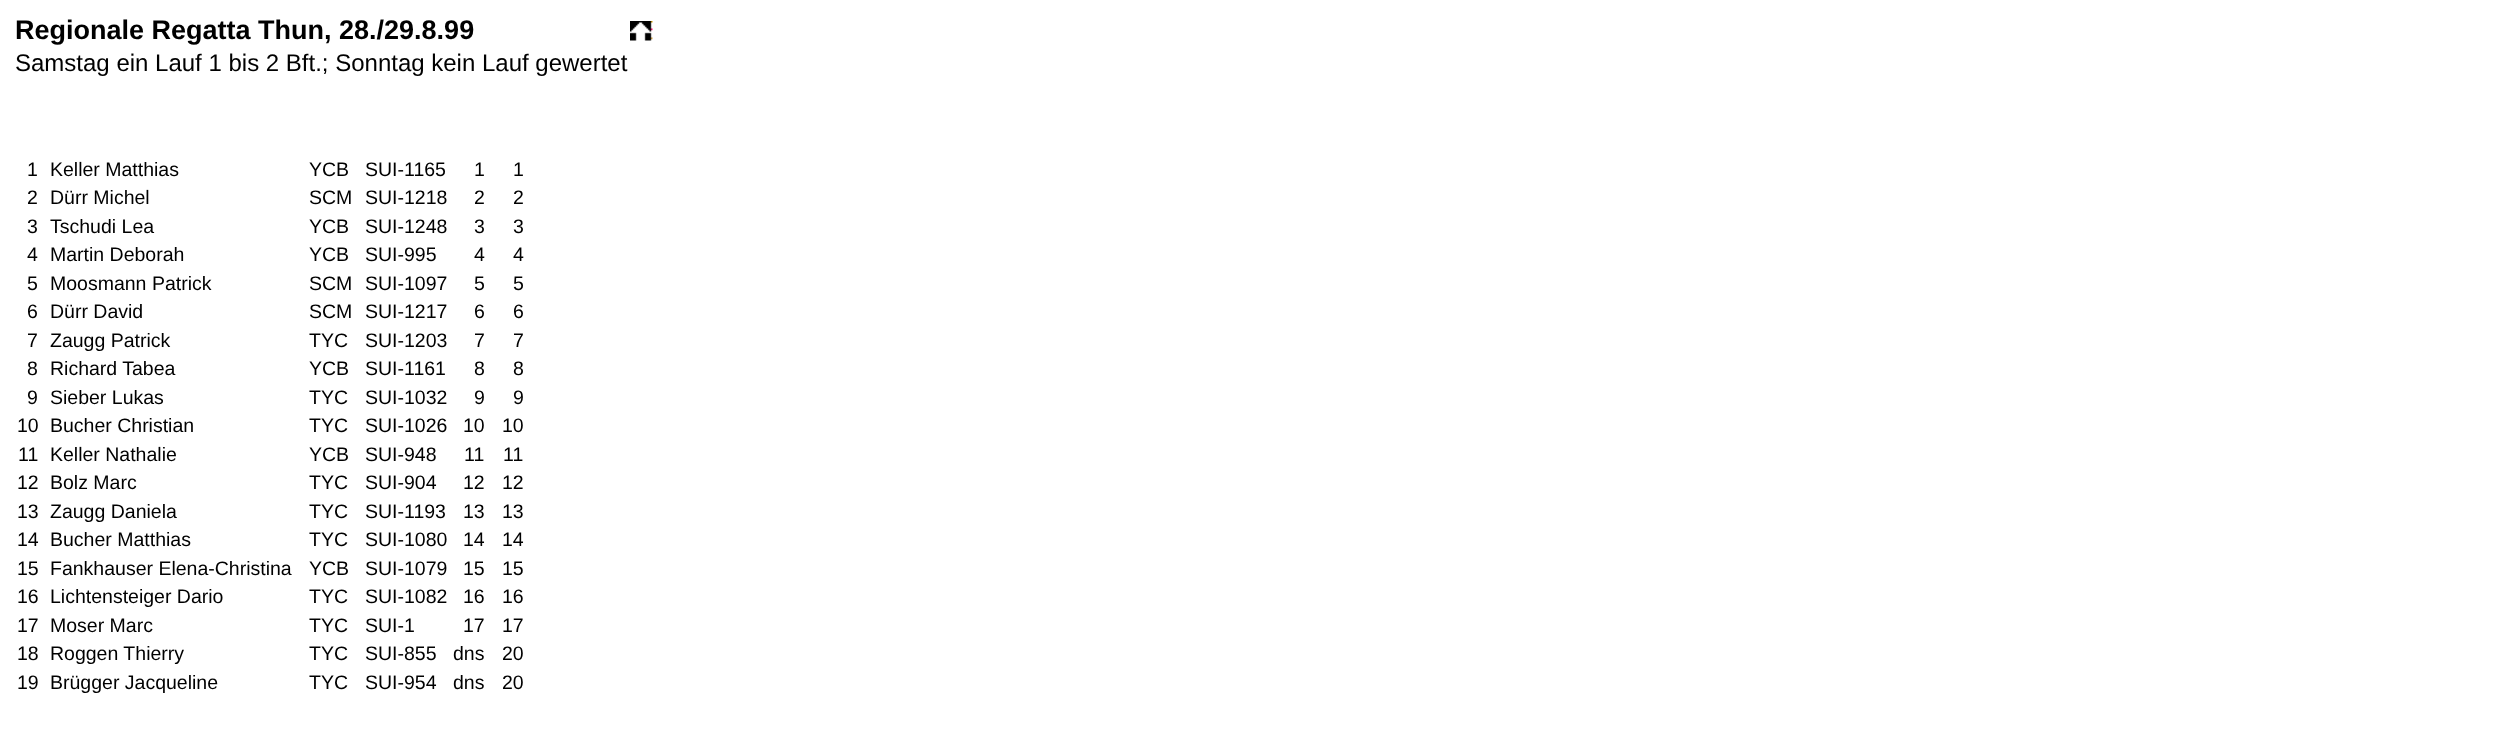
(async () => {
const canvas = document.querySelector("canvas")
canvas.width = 2498
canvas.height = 754
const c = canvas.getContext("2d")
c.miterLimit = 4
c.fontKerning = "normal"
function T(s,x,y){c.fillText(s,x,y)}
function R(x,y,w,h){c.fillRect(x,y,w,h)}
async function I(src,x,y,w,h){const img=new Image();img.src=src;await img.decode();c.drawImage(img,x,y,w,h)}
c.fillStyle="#fff"
R(0,0,2498,754)
c.font="bold 27px Liberation Sans"
c.fillStyle="#000"
T("Regionale Regatta Thun, 28./29.8.99",15,39)
await I("1.png",630,21,23,20)
c.font="24px Liberation Sans"
T("Samstag ein Lauf 1 bis 2 Bft.; Sonntag kein Lauf gewertet",15,71)
c.font="19.5px Liberation Sans"
T("1",27,176)
T("Keller Matthias",50,176)
T("YCB",309,176)
T("SUI-1165",365,176)
T("1",474,176)
T("1",513,176)
T("2",27,204)
T("Dürr Michel",50,204)
T("SCM",309,204)
T("SUI-1218",365,204)
T("2",474,204)
T("2",513,204)
T("3",27,233)
T("Tschudi Lea",50,233)
T("YCB",309,233)
T("SUI-1248",365,233)
T("3",474,233)
T("3",513,233)
T("4",27,261)
T("Martin Deborah",50,261)
T("YCB",309,261)
T("SUI-995",365,261)
T("4",474,261)
T("4",513,261)
T("5",27,290)
T("Moosmann Patrick",50,290)
T("SCM",309,290)
T("SUI-1097",365,290)
T("5",474,290)
T("5",513,290)
T("6",27,318)
T("Dürr David",50,318)
T("SCM",309,318)
T("SUI-1217",365,318)
T("6",474,318)
T("6",513,318)
T("7",27,347)
T("Zaugg Patrick",50,347)
T("TYC",309,347)
T("SUI-1203",365,347)
T("7",474,347)
T("7",513,347)
T("8",27,375)
T("Richard Tabea",50,375)
T("YCB",309,375)
T("SUI-1161",365,375)
T("8",474,375)
T("8",513,375)
T("9",27,404)
T("Sieber Lukas",50,404)
T("TYC",309,404)
T("SUI-1032",365,404)
T("9",474,404)
T("9",513,404)
T("10",17,432)
T("Bucher Christian",50,432)
T("TYC",309,432)
T("SUI-1026",365,432)
T("10",463,432)
T("10",502,432)
T("11",18,461)
T("Keller Nathalie",50,461)
T("YCB",309,461)
T("SUI-948",365,461)
T("11",464,461)
T("11",503,461)
T("12",17,489)
T("Bolz Marc",50,489)
T("TYC",309,489)
T("SUI-904",365,489)
T("12",463,489)
T("12",502,489)
T("13",17,518)
T("Zaugg Daniela",50,518)
T("TYC",309,518)
T("SUI-1193",365,518)
T("13",463,518)
T("13",502,518)
T("14",17,546)
T("Bucher Matthias",50,546)
T("TYC",309,546)
T("SUI-1080",365,546)
T("14",463,546)
T("14",502,546)
T("15",17,575)
T("Fankhauser Elena-Christina",50,575)
T("YCB",309,575)
T("SUI-1079",365,575)
T("15",463,575)
T("15",502,575)
T("16",17,603)
T("Lichtensteiger Dario",50,603)
T("TYC",309,603)
T("SUI-1082",365,603)
T("16",463,603)
T("16",502,603)
T("17",17,632)
T("Moser Marc",50,632)
T("TYC",309,632)
T("SUI-1",365,632)
T("17",463,632)
T("17",502,632)
T("18",17,660)
T("Roggen Thierry",50,660)
T("TYC",309,660)
T("SUI-855",365,660)
T("dns",453,660)
T("20",502,660)
T("19",17,689)
T("Brügger Jacqueline",50,689)
T("TYC",309,689)
T("SUI-954",365,689)
T("dns",453,689)
T("20",502,689)
})()
